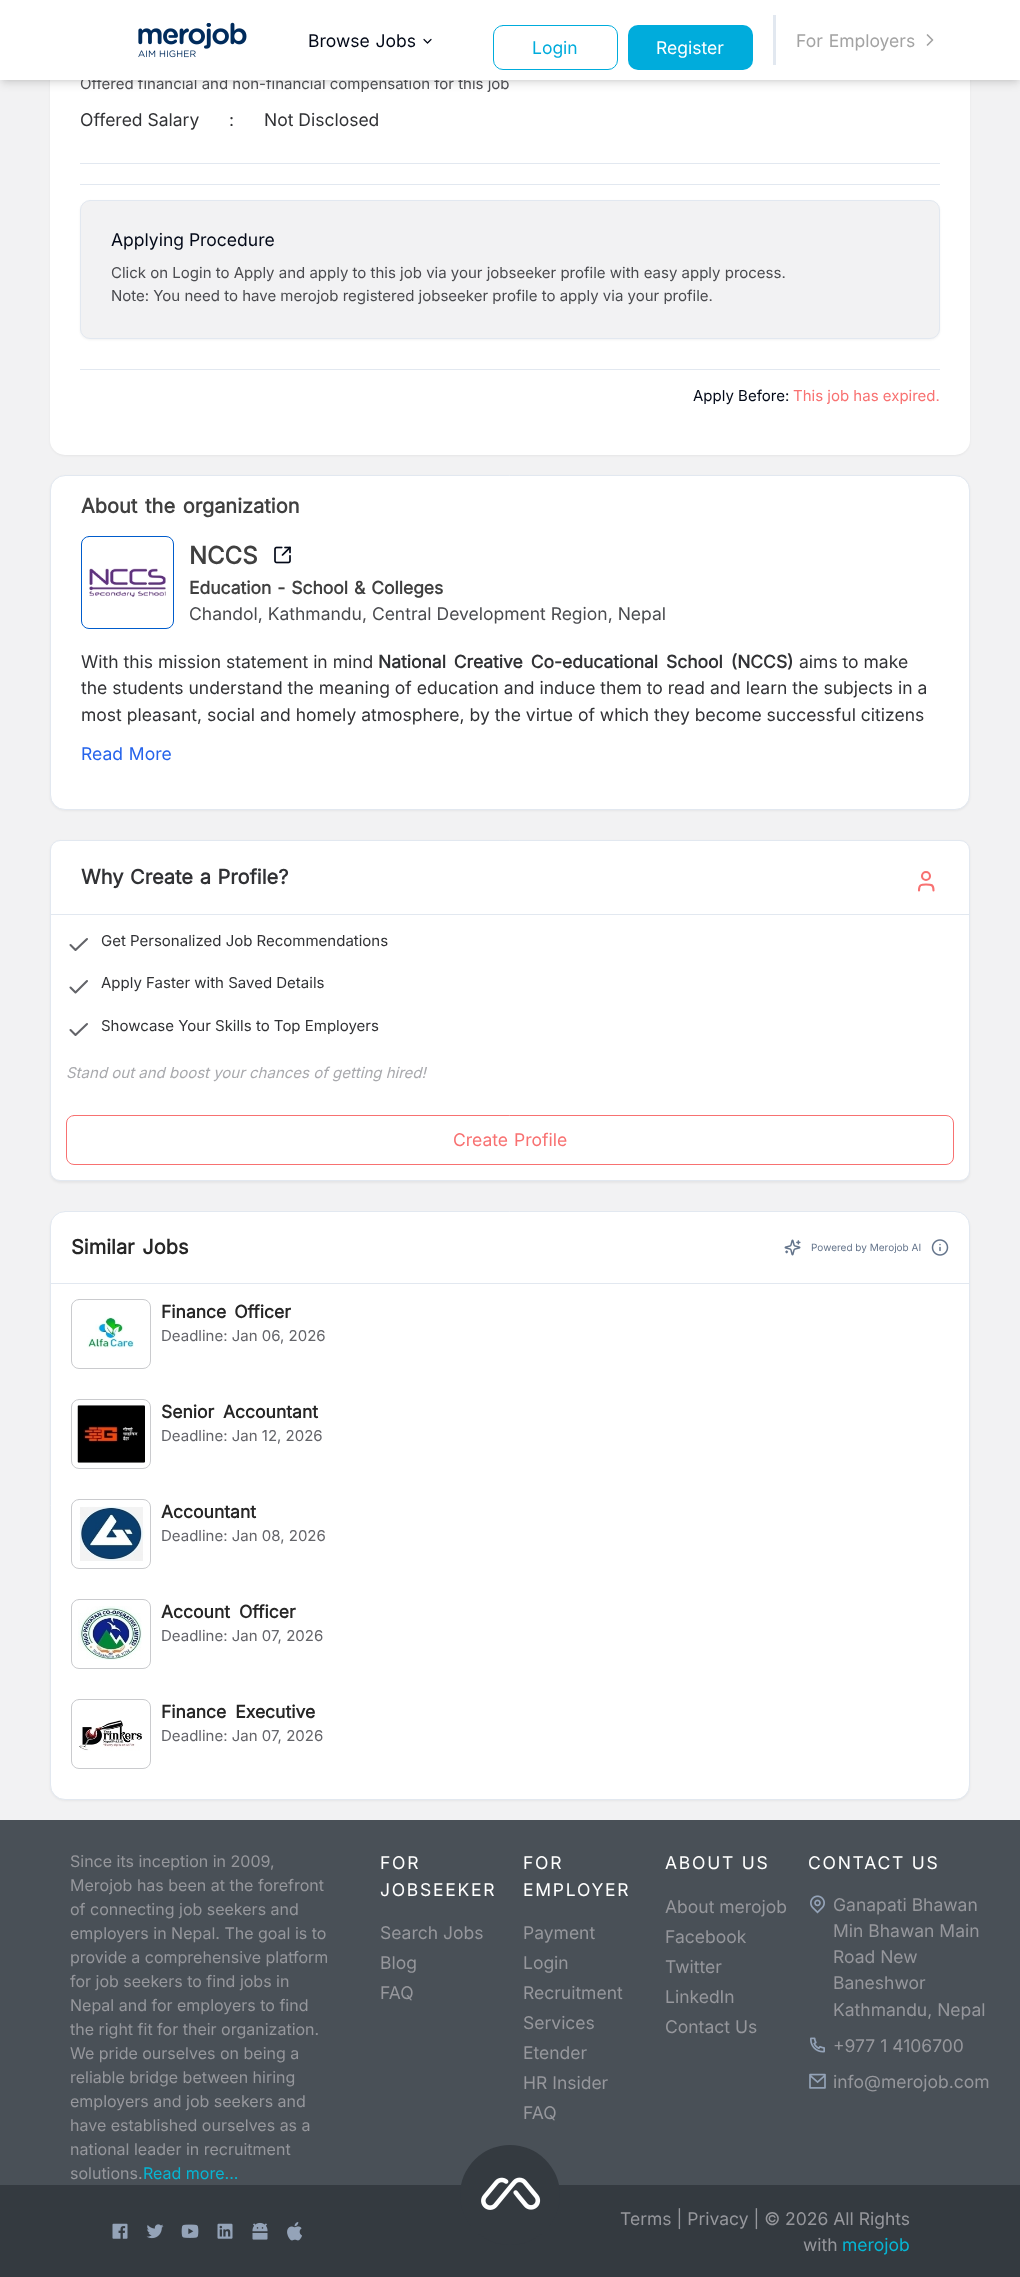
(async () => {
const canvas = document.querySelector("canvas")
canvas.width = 1020
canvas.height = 2277
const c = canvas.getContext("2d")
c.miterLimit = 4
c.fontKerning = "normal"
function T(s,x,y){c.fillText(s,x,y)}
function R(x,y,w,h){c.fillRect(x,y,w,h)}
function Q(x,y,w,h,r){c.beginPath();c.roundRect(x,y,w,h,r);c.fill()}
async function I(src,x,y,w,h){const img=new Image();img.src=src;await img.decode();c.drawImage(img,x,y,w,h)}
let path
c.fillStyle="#495057"
R(0,0,1020,2277)
c.fillStyle="#f2f2f3"
R(0,80,1020,1740)
c.fillStyle="#0000000d"
c.filter="blur(1px)"
c.beginPath()
c.roundRect(50,-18,920,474,15)
c.fill()
c.filter="none"
c.fillStyle="#fff"
Q(50,-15,920,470,15)
c.fillStyle="#0000001a"
c.filter="blur(2.5px)"
c.beginPath()
c.rect(3,5,1015,75)
c.fill()
c.filter="none"
c.filter="blur(4px)"
c.beginPath()
c.rect(1,6,1018,78)
c.fill()
c.filter="none"
c.font="15px Inter"
c.fillStyle="#4a4b4f"
T("Offered financial and non-financial compensation for this job",80,89)
c.fillStyle="#fff"
R(0,0,1020,80)
await I("1.png",138,22,109,36)
c.wordSpacing="1px"
c.font="17.5px Inter"
c.fillStyle="#020817"
T("Browse Jobs",308,47)
path = new Path2D("M424 39.5l3.5 3.5l3.5-3.5")
c.strokeStyle="#020817"
c.lineWidth=1.2
c.lineCap="round"
c.lineJoin="round"
c.stroke(path)
c.beginPath()
c.roundRect(493.5,25.5,124,44,9.5)
c.strokeStyle="#00acdc"
c.lineWidth=1
c.lineJoin="miter"
c.stroke()
c.wordSpacing="0px"
c.fillStyle="#00acdc"
T("Login",532,54)
Q(628,25,125,45,10)
c.fillStyle="#fff"
T("Register",656,54)
c.fillStyle="#e2e8f0"
R(773,15,3,50)
c.wordSpacing="1px"
c.fillStyle="#a3a3a3"
T("For Employers",796,47)
path = new Path2D("M927.5 45l5-5l-5-5")
c.strokeStyle="#a3a3a3"
c.lineWidth=1.7
c.lineJoin="round"
c.stroke(path)
c.wordSpacing="0px"
c.fillStyle="#313235"
T("Offered Salary",80,126)
T(":",229,126)
T("Not Disclosed",264,126)
c.fillStyle="#e2e8f0"
R(80,163,860,1)
R(80,184,860,1)
c.fillStyle="#0000000d"
c.filter="blur(1px)"
c.beginPath()
c.roundRect(80,201,860,139,10)
c.fill()
c.filter="none"
c.fillStyle="#f2f2f3"
c.beginPath()
c.roundRect(80.5,200.5,859,138,9.5)
c.fill()
c.strokeStyle="#e2e8f0"
c.lineWidth=1
c.lineJoin="miter"
c.stroke()
c.fillStyle="#020817"
T("Applying Procedure",111,246)
c.font="15px Inter"
c.fillStyle="#4a4b4f"
T("Click on Login to Apply and apply to this job via your jobseeker profile with easy apply process.",111,278)
T("Note: You need to have merojob registered jobseeker profile to apply via your profile.",111,301)
c.fillStyle="#e2e8f0"
R(80,369,860,1)
c.fillStyle="#020817"
T("Apply Before:",693,401)
c.fillStyle="#f87171"
T("This job has expired.",793,401)
c.fillStyle="#0000000d"
c.filter="blur(1px)"
c.beginPath()
c.roundRect(50,476,920,335,15)
c.fill()
c.filter="none"
c.fillStyle="#fff"
c.beginPath()
c.roundRect(50.5,475.5,919,334,14.5)
c.fill()
c.stroke()
c.wordSpacing="2px"
c.font="bold 20px Inter"
c.fillStyle="#404040"
T("About the organization",81,513)
c.beginPath()
c.roundRect(81.5,536.5,92,92,7.5)
c.strokeStyle="#005ccc"
c.stroke()
await I("2.png",89,568,77,29)
c.wordSpacing="0px"
c.font="bold 24px Inter"
T("NCCS",189,564)
await I("3.png",274,546,17,18)
c.wordSpacing="1px"
c.font="bold 17.5px Inter"
T("Education - School & Colleges",189,594)
c.wordSpacing="0px"
c.font="17.5px Inter"
c.fillStyle="#4a4b4f"
T("Chandol, Kathmandu, Central Development Region, Nepal",189,620)
c.fillStyle="#313235"
T("With this mission statement in mind",81,668)
c.wordSpacing="3px"
c.font="bold 17.5px Inter"
T("National Creative Co-educational School (NCCS)",378,668)
c.wordSpacing="0px"
c.font="17.5px Inter"
T("aims to make",799,668)
T("the students understand the meaning of education and induce them to read and learn the subjects in a",81,694)
T("most pleasant, social and homely atmosphere, by the virtue of which they become successful citizens",81,721)
c.wordSpacing="1px"
c.fillStyle="#2563eb"
T("Read More",81,760)
c.fillStyle="#0000000d"
c.filter="blur(1px)"
c.beginPath()
c.roundRect(50,841,920,342,10)
c.fill()
c.filter="none"
c.fillStyle="#fff"
c.beginPath()
c.roundRect(50.5,840.5,919,340,9.5)
c.fill()
c.strokeStyle="#e2e8f0"
c.stroke()
c.font="bold 20px Inter"
c.fillStyle="#313235"
T("Why Create a Profile?",81,884)
path = new Path2D("M933.5 890.5c0-6-2-6-7.5-6c-5 0-7 0-7 6")
c.strokeStyle="#f87171"
c.lineWidth=2.1
c.lineJoin="round"
c.stroke(path)
c.beginPath()
c.arc(926,876,4,0,7)
c.stroke()
c.fillStyle="#e2e8f0"
R(51,914,918,1)
path = new Path2D("M87 939l-11.5 11l-5-5m16.5 36l-11.5 11.5l-5-5")
c.strokeStyle="#636469"
c.stroke(path)
c.wordSpacing="0px"
c.font="15px Inter"
c.fillStyle="#313235"
T("Get Personalized Job Recommendations",101,946)
T("Apply Faster with Saved Details",101,988)
path = new Path2D("M87 1024l-11.5 11l-5-5")
c.stroke(path)
T("Showcase Your Skills to Top Employers",101,1031)
c.font="italic 15px Inter"
c.fillStyle="#a8a9ad"
T("Stand out and boost your chances of getting hired!",66,1078)
c.beginPath()
c.roundRect(66.5,1115.5,887,49,7.5)
c.strokeStyle="#f87171"
c.lineWidth=1
c.lineJoin="miter"
c.stroke()
c.wordSpacing="1px"
c.font="17.5px Inter"
c.fillStyle="#f87171"
T("Create Profile",453,1146)
c.fillStyle="#0000000d"
c.filter="blur(1px)"
c.beginPath()
c.roundRect(50,1213,920,588,15)
c.fill()
c.filter="none"
c.fillStyle="#fff"
c.beginPath()
c.roundRect(50.5,1211.5,919,588,14.5)
c.fill()
c.strokeStyle="#e2e8f0"
c.stroke()
c.wordSpacing="2px"
c.font="bold 20px Inter"
c.fillStyle="#262626"
T("Similar Jobs",71,1254)
await I("4.png",784,1239,17,17)
c.wordSpacing="0px"
c.font="10px Inter"
c.fillStyle="#64748b"
T("Powered by Merojob AI",811,1251)
await I("5.png",931,1239,18,17)
c.fillStyle="#e2e8f0"
R(51,1283,918,1)
c.beginPath()
c.roundRect(71.5,1299.5,79,69,7.5)
c.strokeStyle="#cacbce"
c.stroke()
await I("6.png",87,1317,47,31)
c.wordSpacing="3px"
c.font="bold 17.5px Inter"
c.fillStyle="#262626"
T("Finance Officer",161,1318)
c.wordSpacing="0px"
c.font="15px Inter"
c.fillStyle="#636469"
T("Deadline: Jan 06, 2026",161,1341)
c.beginPath()
c.roundRect(71.5,1399.5,79,69,7.5)
c.stroke()
await I("7.png",77,1405,68,58)
c.wordSpacing="4px"
c.font="bold 17.5px Inter"
c.fillStyle="#262626"
T("Senior Accountant",161,1418)
c.wordSpacing="0px"
c.font="15px Inter"
c.fillStyle="#636469"
T("Deadline: Jan 12, 2026",161,1441)
c.beginPath()
c.roundRect(71.5,1499.5,79,69,7.5)
c.stroke()
await I("8.png",79,1506,66,55)
c.font="bold 17.5px Inter"
c.fillStyle="#262626"
T("Accountant",161,1518)
c.font="15px Inter"
c.fillStyle="#636469"
T("Deadline: Jan 08, 2026",161,1541)
c.beginPath()
c.roundRect(71.5,1599.5,79,69,7.5)
c.stroke()
await I("9.png",78,1606,64,54)
c.wordSpacing="4px"
c.font="bold 17.5px Inter"
c.fillStyle="#262626"
T("Account Officer",161,1618)
c.wordSpacing="0px"
c.font="15px Inter"
c.fillStyle="#636469"
T("Deadline: Jan 07, 2026",161,1641)
c.beginPath()
c.roundRect(71.5,1699.5,79,69,7.5)
c.stroke()
await I("10.png",79,1720,63,31)
c.wordSpacing="4px"
c.font="bold 17.5px Inter"
c.fillStyle="#262626"
T("Finance Executive",161,1718)
c.wordSpacing="0px"
c.font="15px Inter"
c.fillStyle="#636469"
T("Deadline: Jan 07, 2026",161,1741)
c.font="16px Inter"
c.fillStyle="#96979c"
T("Since its inception in 2009,",70,1867)
T("Merojob has been at the forefront",70,1891)
T("of connecting job seekers and",70,1915)
T("employers in Nepal. The goal is to",70,1939)
T("provide a comprehensive platform",70,1963)
T("for job seekers to find jobs in",70,1987)
T("Nepal and for employers to find",70,2011)
T("the right fit for their organization.",70,2035)
T("We pride ourselves on being a",70,2059)
T("reliable bridge between hiring",70,2083)
T("employers and job seekers and",70,2107)
T("have established ourselves as a",70,2131)
T("national leader in recruitment",70,2155)
T("solutions.",70,2179)
c.fillStyle="#06b6d4"
T("Read more...",143,2179)
c.letterSpacing="1.75px"
c.font="17.5px Inter"
c.fillStyle="#fff"
T("FOR",380,1869)
T("JOBSEEKER",380,1896)
c.letterSpacing="0px"
c.fillStyle="#96979c"
T("Search Jobs",380,1939)
T("Blog",380,1969)
T("FAQ",380,1999)
c.letterSpacing="1.75px"
c.fillStyle="#fff"
T("FOR",523,1869)
T("EMPLOYER",523,1896)
c.letterSpacing="0px"
c.fillStyle="#96979c"
T("Payment",523,1939)
T("Login",523,1969)
T("Recruitment",523,1999)
T("Services",523,2029)
T("Etender",523,2059)
T("HR Insider",523,2089)
T("FAQ",523,2119)
c.letterSpacing="1.75px"
c.fillStyle="#fff"
T("ABOUT US",665,1869)
c.letterSpacing="0px"
c.fillStyle="#96979c"
T("About merojob",665,1913)
T("Facebook",665,1943)
T("Twitter",665,1973)
T("LinkedIn",665,2003)
T("Contact Us",665,2033)
c.letterSpacing="1.75px"
c.fillStyle="#fff"
T("CONTACT US",808,1869)
await I("11.png",810,1895,15,19)
c.letterSpacing="0px"
c.fillStyle="#96979c"
T("Ganapati Bhawan",833,1911)
T("Min Bhawan Main",833,1937)
T("Road New",833,1963)
T("Baneshwor",833,1989)
T("Kathmandu, Nepal",833,2016)
await I("12.png",810,2037,15,16)
T("+977 1 4106700",833,2052)
await I("13.png",809,2073,17,16)
T("info@merojob.com",833,2088)
c.fillStyle="#343a40"
R(0,2185,1020,92)
c.beginPath()
c.arc(510,2195,50,0,7)
c.fill()
await I("14.png",481,2177,60,33)
await I("15.png",112,2223,16,16)
await I("16.png",146,2224,18,15)
await I("17.png",181,2224,18,14)
await I("18.png",217,2223,16,16)
await I("19.png",252,2222,16,18)
await I("20.png",287,2222,15,19)
c.fillStyle="#96979c"
T("Terms | Privacy | © 2026 All Rights",620,2225)
T("with",803,2251)
c.fillStyle="#06b6d4"
T("merojob",842,2251)
})()
